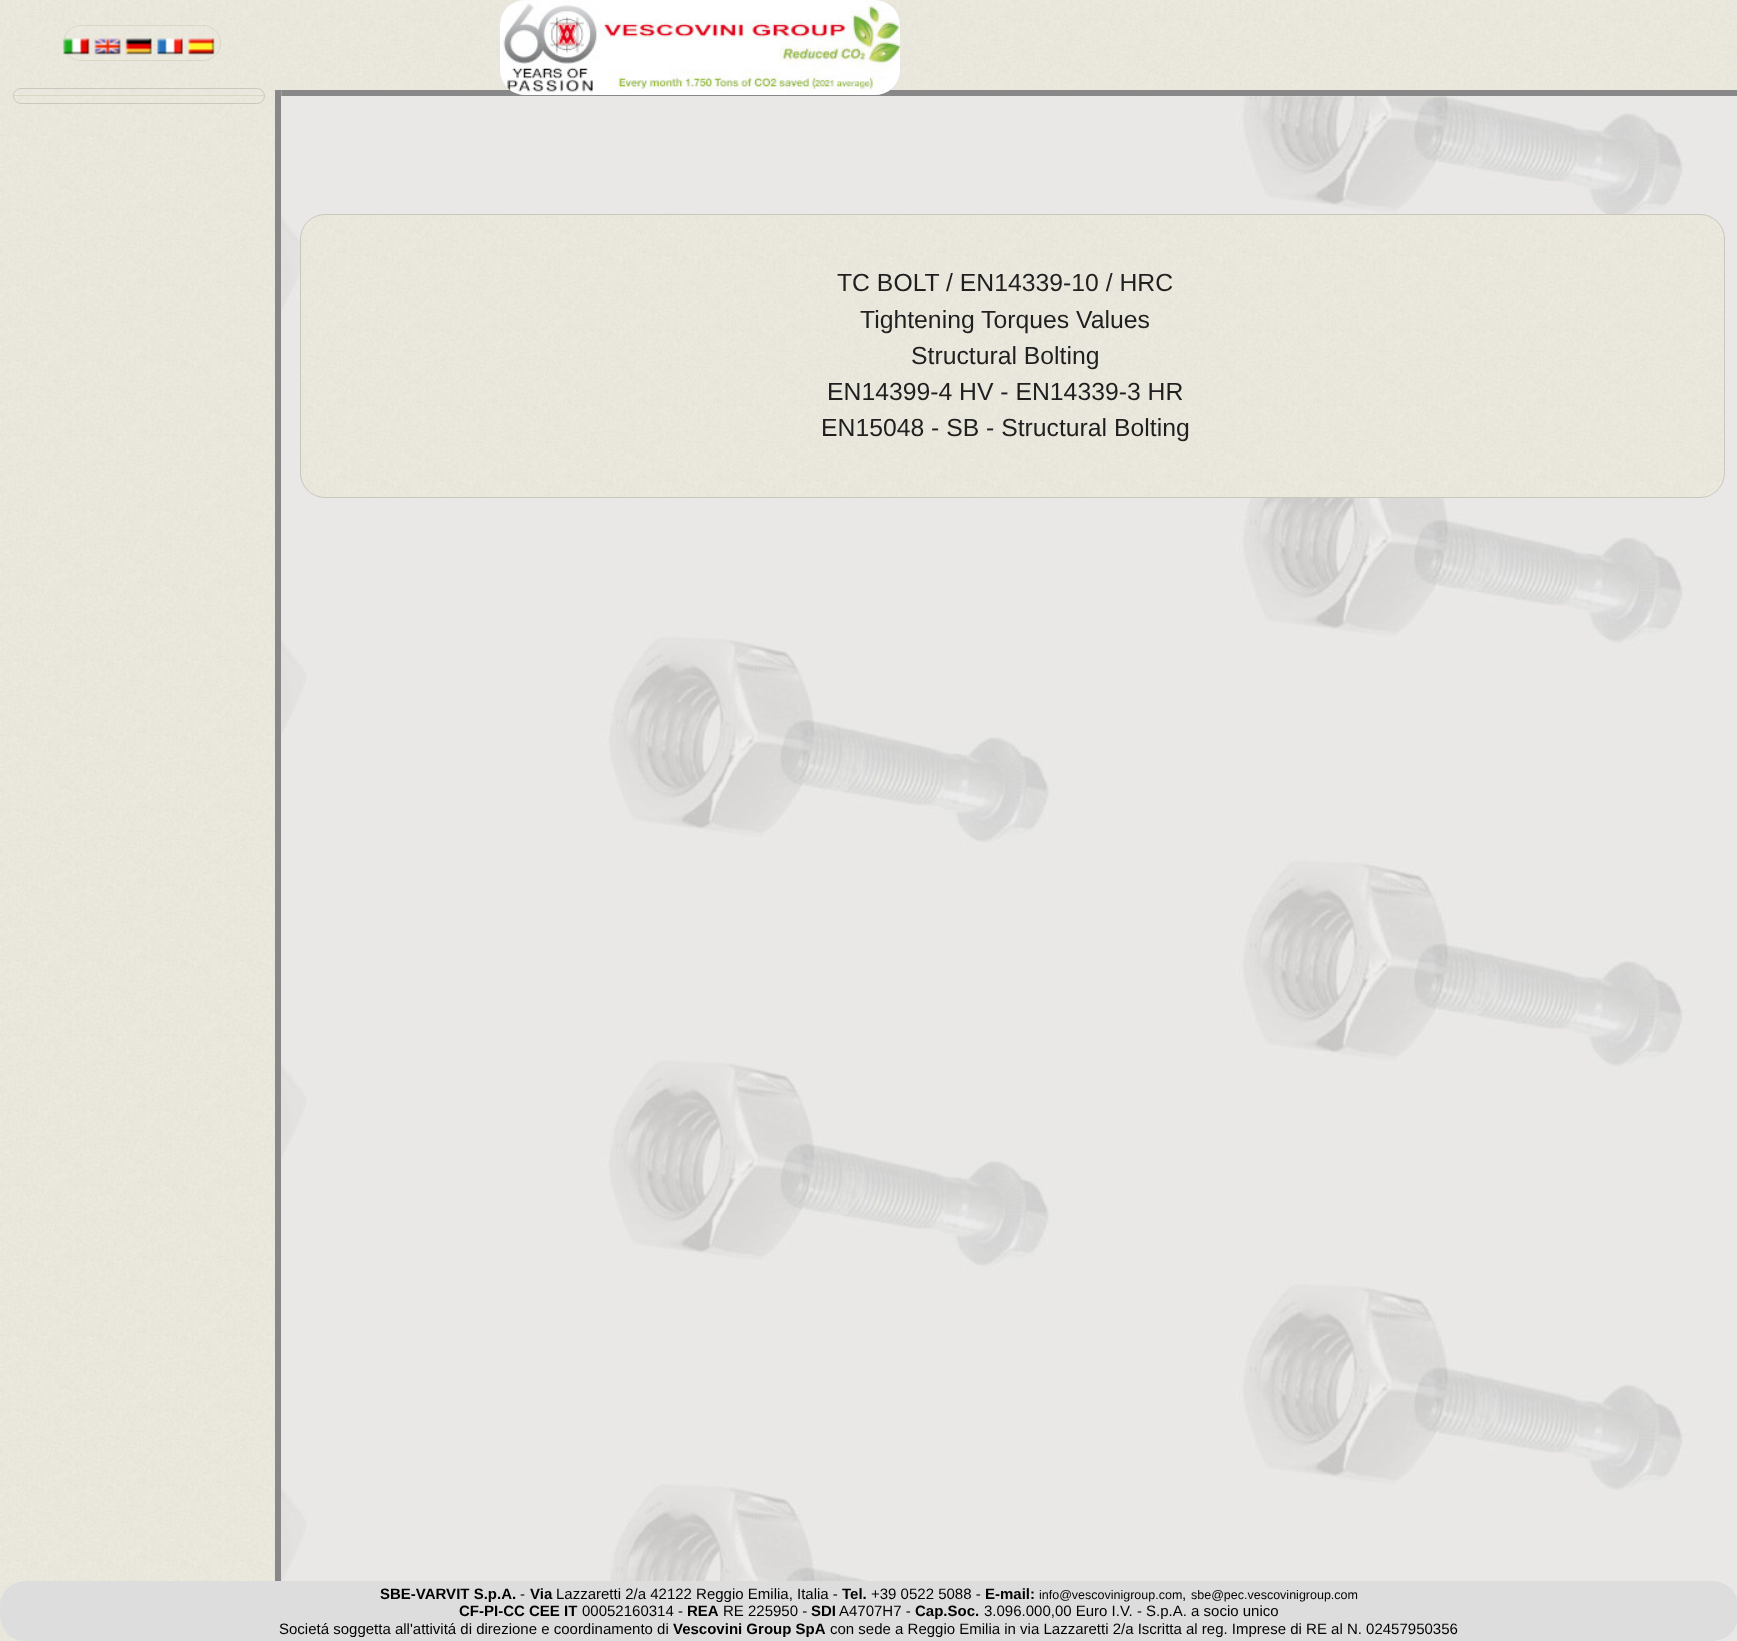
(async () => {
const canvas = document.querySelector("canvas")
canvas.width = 1737
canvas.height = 1641
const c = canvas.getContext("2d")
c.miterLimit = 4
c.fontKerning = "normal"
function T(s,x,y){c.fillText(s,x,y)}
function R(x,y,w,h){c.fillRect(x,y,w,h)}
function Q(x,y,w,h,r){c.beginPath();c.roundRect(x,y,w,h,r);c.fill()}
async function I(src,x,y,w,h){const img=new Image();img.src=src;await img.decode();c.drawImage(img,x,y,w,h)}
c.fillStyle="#fff"
R(0,0,1737,1641)
await I("1.png",281,96,1456,1545)
await I("2.png",0,0,1737,97)
c.fillStyle="#888"
R(281,90,1456,6)
await I("3.png",64,25,156,36)
c.beginPath()
c.roundRect(63.5,25.5,157,35,17.5)
c.strokeStyle="#d9d6c4"
c.stroke()
await I("4.png",63,38,27,17)
await I("5.png",94,38,27,17)
await I("6.png",125,38,27,17)
await I("7.png",157,38,26,17)
await I("8.png",188,38,27,17)
c.fillStyle="#ddd"
Q(500,0,400,95,25)
await I("9.png",500,0,400,95)
await I("11.png",0,90,282,1551)
c.fillStyle="#eceadf"
Q(13,88,252,16,8)
await I("10.png",17,88,247,15)
c.beginPath()
c.roundRect(13.5,88.5,251,15,7.5)
c.strokeStyle="#cbc7bd"
c.stroke()
c.fillStyle="#d9d6c4"
R(14,95,250,1)
c.fillStyle="#888"
R(275,90,6,1491)
await I("12.png",300,214,1425,283)
c.beginPath()
c.roundRect(300.5,214.5,1424,283,24.5)
c.stroke()
c.font="24.75px Liberation Sans"
c.fillStyle="#1f1f1f"
T("TC BOLT / EN14339-10 / HRC",837,291)
T("Tightening Torques Values",860,328)
T("Structural Bolting",911,364)
T("EN14399-4 HV - EN14339-3 HR",827,400)
T("EN15048 - SB - Structural Bolting",821,436)
c.fillStyle="#ddd"
Q(0,1581,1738,60,25)
c.font="bold 15px Liberation Sans"
c.fillStyle="#000"
T("SBE-VARVIT S.p.A.",380,1599)
c.font="15px Liberation Sans"
T("-",520,1599)
c.font="bold 15px Liberation Sans"
T("Via",530,1599)
c.font="15px Liberation Sans"
T("Lazzaretti 2/a 42122 Reggio Emilia, Italia -",556,1599)
c.font="bold 15px Liberation Sans"
T("Tel.",842,1599)
c.font="15px Liberation Sans"
T("+39 0522 5088 -",871,1599)
c.font="bold 15px Liberation Sans"
T("E-mail:",985,1599)
c.font="12.5px Liberation Sans"
T("info@vescovinigroup.com",1039,1599)
T("sbe@pec.vescovinigroup.com",1191,1599)
c.font="15px Liberation Sans"
T(",",1182,1599)
c.font="bold 15px Liberation Sans"
T("CF-PI-CC CEE IT",459,1616)
c.font="15px Liberation Sans"
T("00052160314 -",582,1616)
c.font="bold 15px Liberation Sans"
T("REA",687,1616)
c.font="15px Liberation Sans"
T("RE 225950 -",723,1616)
c.font="bold 15px Liberation Sans"
T("SDI",811,1616)
c.font="15px Liberation Sans"
T("A4707H7 -",839,1616)
c.font="bold 15px Liberation Sans"
T("Cap.Soc.",915,1616)
c.font="15px Liberation Sans"
T("3.096.000,00 Euro I.V. - S.p.A. a socio unico",984,1616)
T("Societá soggetta all'attivitá di direzione e coordinamento di",279,1634)
c.font="bold 15px Liberation Sans"
T("Vescovini Group SpA",673,1634)
c.font="15px Liberation Sans"
T("con sede a Reggio Emilia in via Lazzaretti 2/a Iscritta al reg. Imprese di RE al N. 02457950356",830,1634)
})()
